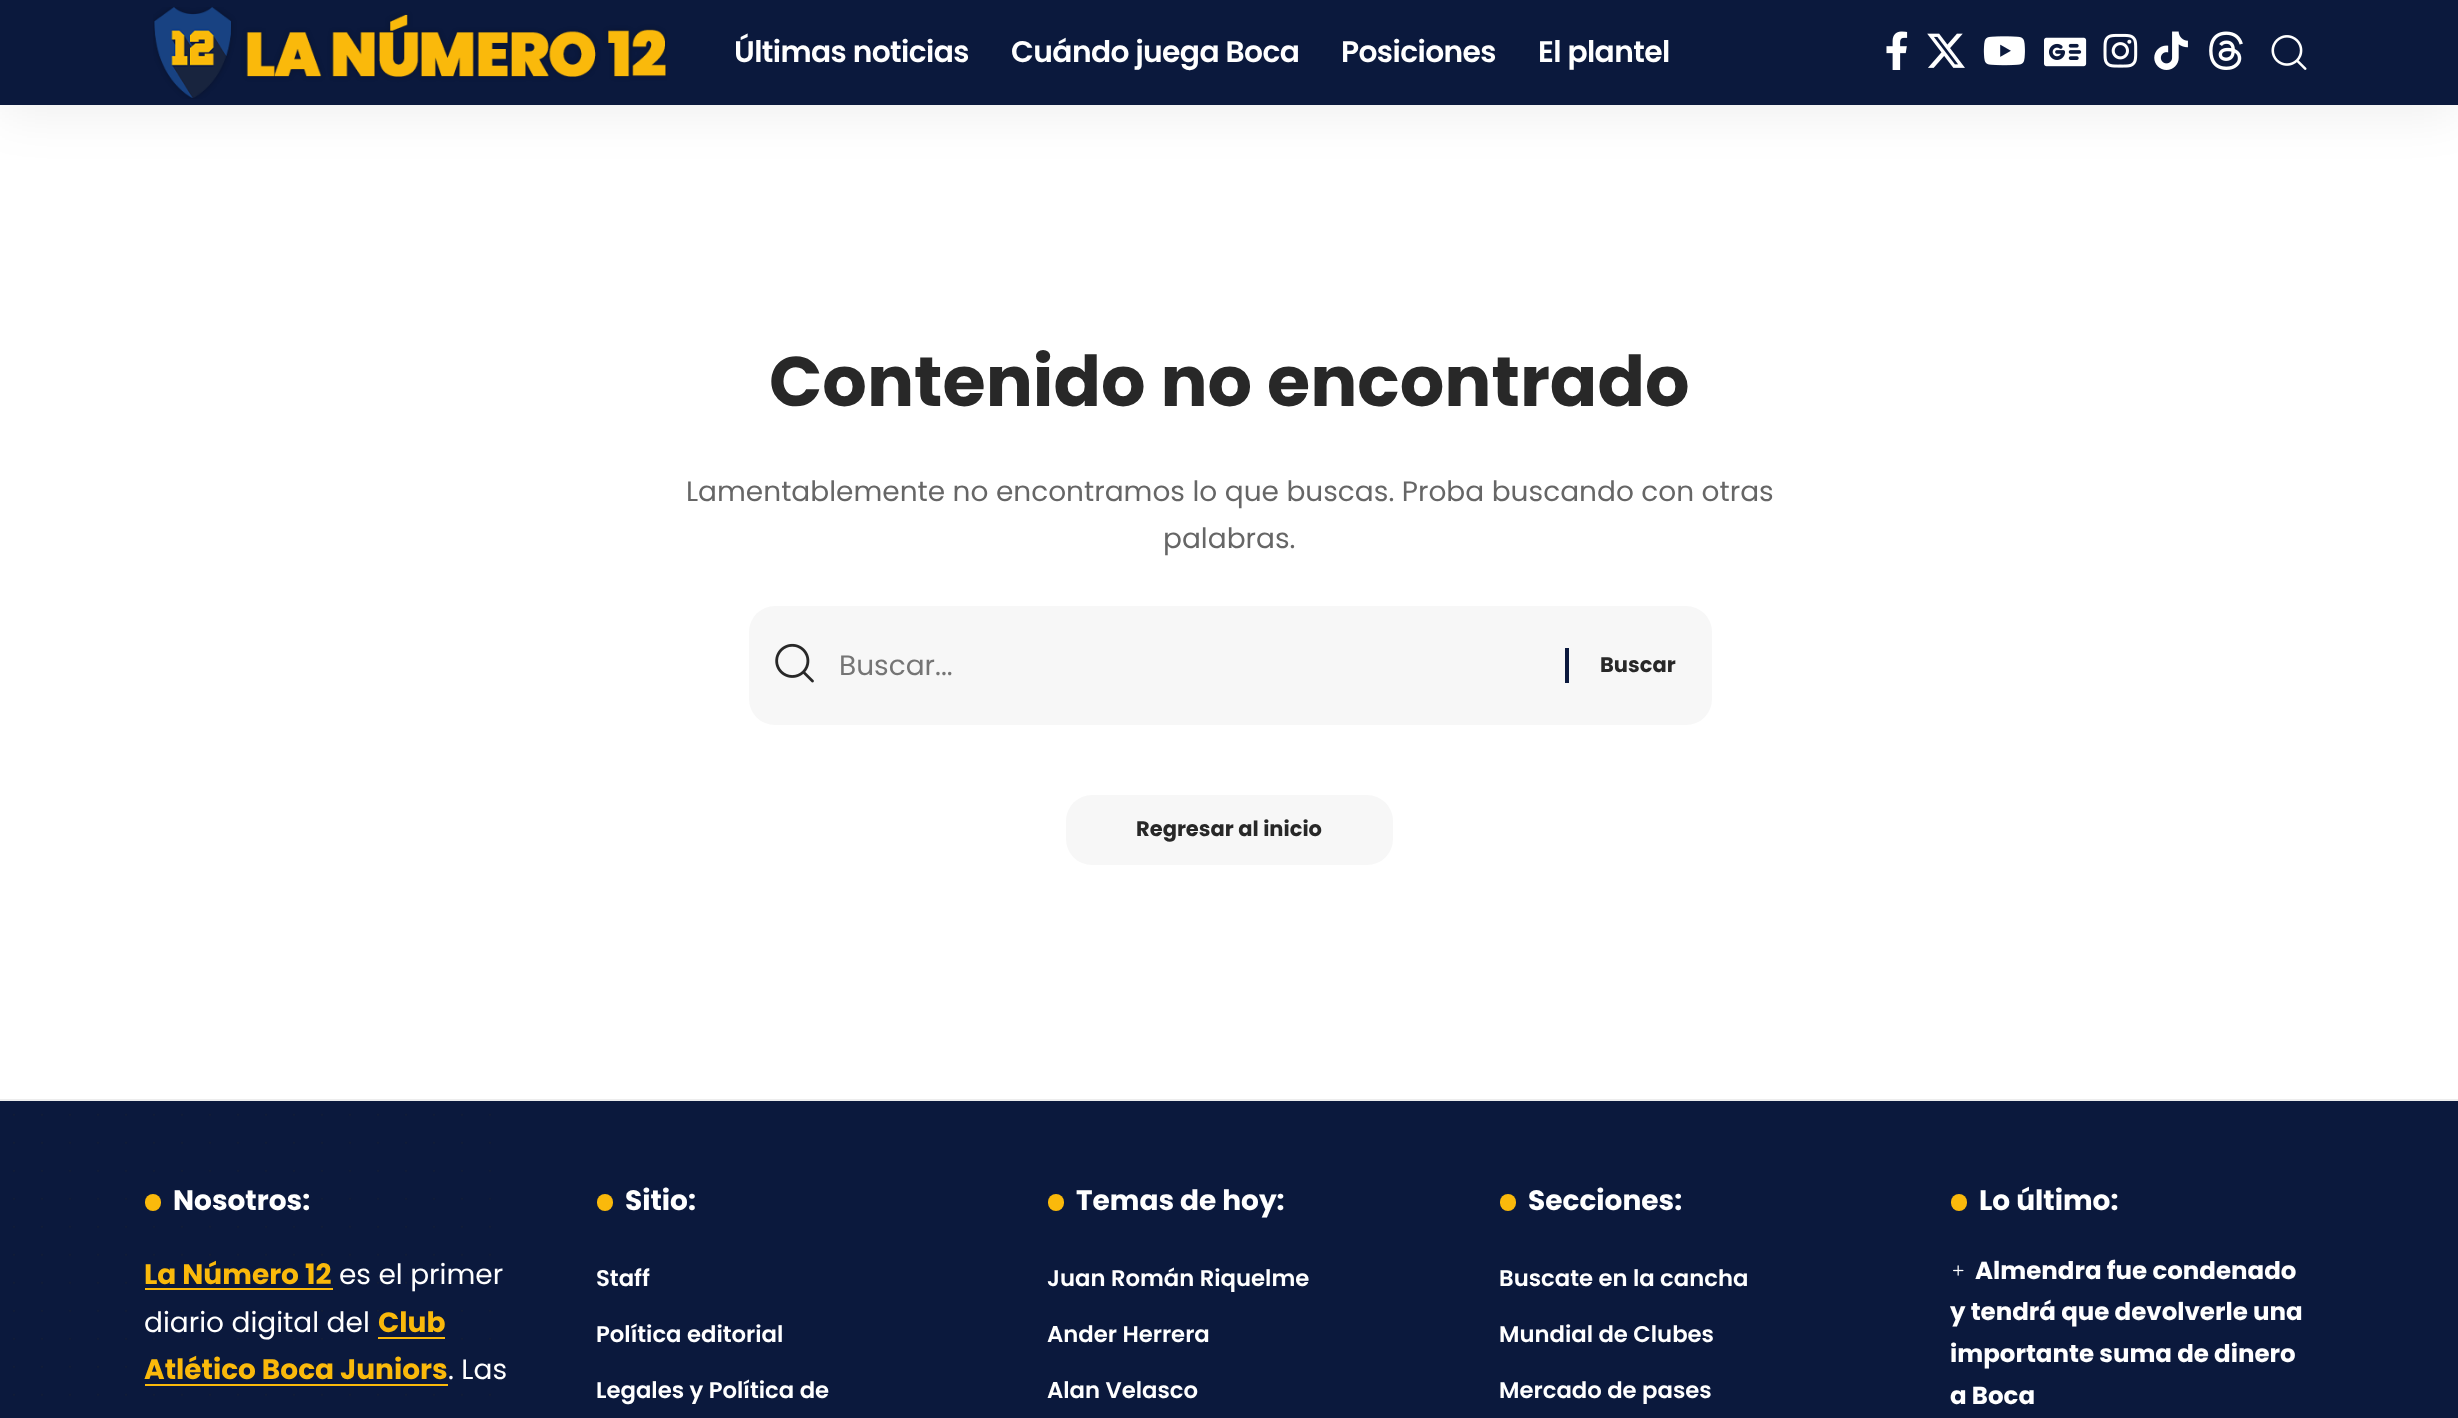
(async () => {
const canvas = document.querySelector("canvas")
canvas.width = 2458
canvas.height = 1418
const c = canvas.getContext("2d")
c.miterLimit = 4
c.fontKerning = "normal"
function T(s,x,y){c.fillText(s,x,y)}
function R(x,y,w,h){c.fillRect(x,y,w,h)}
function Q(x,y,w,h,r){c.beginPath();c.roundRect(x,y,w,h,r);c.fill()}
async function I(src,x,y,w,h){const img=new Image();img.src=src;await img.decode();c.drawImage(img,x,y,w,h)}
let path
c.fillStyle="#fff"
R(0,0,2458,1418)
c.fillStyle="#00000012"
c.filter="blur(26px)"
c.beginPath()
c.rect(0,7,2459,105)
c.fill()
c.filter="none"
c.fillStyle="#0b193d"
R(0,0,2458,105)
await I("1.png",153,7,514,92)
c.letterSpacing="-0.6px"
c.font="600 29.75px Poppins"
c.fillStyle="#fff"
T("Últimas noticias",734,62)
T("Cuándo juega Boca",1011,62)
T("Posiciones",1341,62)
T("El plantel",1538,62)
await I("2.png",1886,31,22,39)
await I("3.png",1927,33,38,35)
await I("4.png",1983,36,42,30)
await I("5.png",2044,37,43,30)
await I("6.png",2103,33,35,35)
await I("7.png",2154,31,34,39)
await I("8.png",2209,31,34,39)
await I("9.png",2271,35,36,35)
c.letterSpacing="0px"
c.font="bold 70px Poppins"
c.fillStyle="#282828"
T("Contenido no encontrado",769,406)
c.font="28px Poppins"
c.fillStyle="#666"
T("Lamentablemente no encontramos lo que buscas. Proba buscando con otras",686,501)
T("palabras.",1163,548)
c.fillStyle="#f7f7f7"
Q(749,606,963,119,26)
await I("10.png",775,643,39,40)
c.fillStyle="#757575"
T("Buscar...",839,675)
c.fillStyle="#0b193d"
R(1565,648,4,35)
c.font="bold 21px Poppins"
c.fillStyle="#282828"
T("Buscar",1600,672)
c.fillStyle="#f7f7f7"
Q(1066,795,327,70,26)
c.fillStyle="#282828"
T("Regresar al inicio",1136,836)
c.fillStyle="#ededed"
R(0,1099,2458,2)
c.fillStyle="#0b193d"
R(0,1101,2458,317)
path = new Path2D("M14 1114.8h476.3")
c.strokeStyle="#111c39"
c.lineWidth=2.6
c.lineCap="round"
c.setLineDash([0,28])
c.stroke(path)
path = new Path2D("M14 1142.8h476.3")
c.stroke(path)
path = new Path2D("M14 1170.8h476.3")
c.stroke(path)
path = new Path2D("M14 1198.8h476.3")
c.stroke(path)
path = new Path2D("M14 1226.8h476.3")
c.stroke(path)
path = new Path2D("M14 1254.8h476.3")
c.stroke(path)
path = new Path2D("M14 1282.8h476.3")
c.stroke(path)
path = new Path2D("M14 1310.8h476.3")
c.stroke(path)
path = new Path2D("M14 1338.8h476.3")
c.stroke(path)
path = new Path2D("M14 1366.8h476.3")
c.stroke(path)
path = new Path2D("M14 1394.8h476.3")
c.stroke(path)
c.fillStyle="#fab90b"
Q(145,1194,16,17,8)
c.font="bold 28px Poppins"
c.fillStyle="#fff"
T("Nosotros:",173,1210)
c.fillStyle="#fab90b"
T("La Número 12",144,1284)
R(145,1288,188,2)
c.font="28px Poppins"
c.fillStyle="#fff"
T("es el primer",339,1284)
T("diario digital del",144,1332)
c.font="bold 28px Poppins"
c.fillStyle="#fab90b"
T("Club",378,1332)
R(378,1337,67,2)
T("Atlético Boca Juniors",144,1379)
R(145,1384,303,2)
c.font="28px Poppins"
c.fillStyle="#fff"
T(". Las",448,1379)
c.fillStyle="#fab90b"
Q(597,1194,16,17,8)
c.font="bold 28px Poppins"
c.fillStyle="#fff"
T("Sitio:",625,1210)
c.font="600 22.75px Poppins"
T("Staff",596,1286)
T("Política editorial",596,1342)
T("Legales y Política de",596,1398)
c.fillStyle="#fab90b"
Q(1048,1194,16,17,8)
c.font="bold 28px Poppins"
c.fillStyle="#fff"
T("Temas de hoy:",1076,1210)
c.font="600 22.75px Poppins"
T("Juan Román Riquelme",1047,1286)
T("Ander Herrera",1047,1342)
T("Alan Velasco",1047,1398)
c.fillStyle="#fab90b"
Q(1500,1194,16,17,8)
c.font="bold 28px Poppins"
c.fillStyle="#fff"
T("Secciones:",1528,1210)
c.font="600 22.75px Poppins"
T("Buscate en la cancha",1499,1286)
T("Mundial de Clubes",1499,1342)
T("Mercado de pases",1499,1398)
c.fillStyle="#fab90b"
Q(1951,1194,16,17,8)
c.font="bold 28px Poppins"
c.fillStyle="#fff"
T("Lo último:",1979,1210)
await I("11.png",1953,1265,11,11)
c.font="bold 24.5px Poppins"
T("Almendra fue condenado",1975,1279)
T("y tendrá que devolverle una",1950,1320)
T("importante suma de dinero",1950,1362)
T("a Boca",1950,1404)
})()
